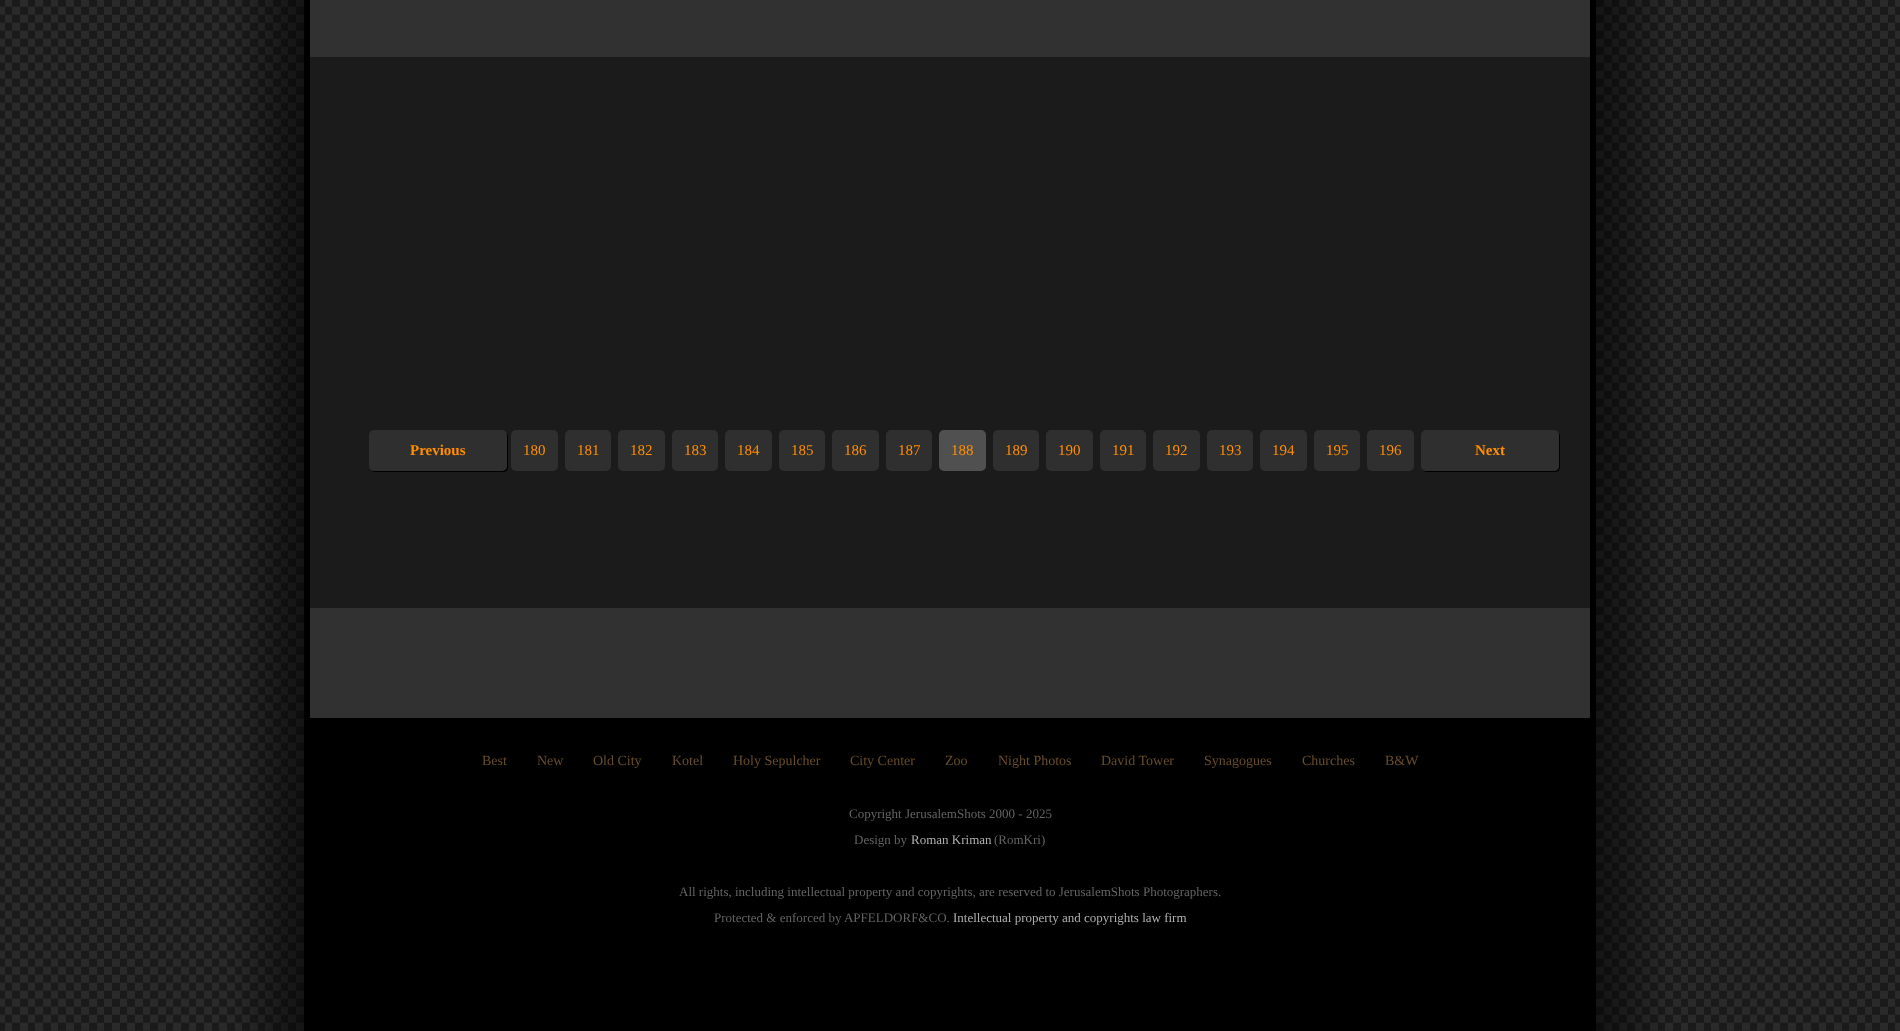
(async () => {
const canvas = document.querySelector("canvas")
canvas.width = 1900
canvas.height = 1031
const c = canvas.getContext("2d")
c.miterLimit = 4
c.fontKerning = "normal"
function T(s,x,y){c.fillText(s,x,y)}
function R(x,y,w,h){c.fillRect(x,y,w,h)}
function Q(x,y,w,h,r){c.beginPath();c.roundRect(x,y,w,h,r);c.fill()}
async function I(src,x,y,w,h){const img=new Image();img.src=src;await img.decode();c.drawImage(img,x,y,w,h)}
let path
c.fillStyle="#fff"
R(0,0,1900,1031)
await I("1.png",0,0,1900,1031)
c.fillStyle="#313131"
R(310,0,1280,718)
c.fillStyle="#1b1b1b"
R(310,57,1280,551)
c.fillStyle="#000"
path = new Path2D("M371 470c1 1 2 2 4 2h128c3 0 5-2 5-5v-31c0-2-1-3-2-4c1 1 1 2 1 3v31c0 3-2 5-5 5h-128c-1 0-2 0-3-1z")
c.fill(path)
c.fillStyle="#2f2f2f"
Q(369,430,138,41,5)
c.font="bold 15px Liberation Serif"
c.fillStyle="#ff8d00"
T("Previous",410,455)
c.fillStyle="#2f2f2f"
Q(511,430,47,41,5)
c.font="15px Liberation Serif"
c.fillStyle="#ff8d00"
T("180",523,455)
c.fillStyle="#2f2f2f"
Q(565,430,46,41,5)
c.fillStyle="#ff8d00"
T("181",577,455)
c.fillStyle="#2f2f2f"
Q(618,430,47,41,5)
c.fillStyle="#ff8d00"
T("182",630,455)
c.fillStyle="#2f2f2f"
Q(672,430,46,41,5)
c.fillStyle="#ff8d00"
T("183",684,455)
c.fillStyle="#2f2f2f"
Q(725,430,47,41,5)
c.fillStyle="#ff8d00"
T("184",737,455)
c.fillStyle="#2f2f2f"
Q(779,430,46,41,5)
c.fillStyle="#ff8d00"
T("185",791,455)
c.fillStyle="#2f2f2f"
Q(832,430,47,41,5)
c.fillStyle="#ff8d00"
T("186",844,455)
c.fillStyle="#2f2f2f"
Q(886,430,46,41,5)
c.fillStyle="#ff8d00"
T("187",898,455)
c.fillStyle="#505050"
Q(939,430,47,41,5)
c.fillStyle="#ff8d00"
T("188",951,455)
c.fillStyle="#2f2f2f"
Q(993,430,46,41,5)
c.fillStyle="#ff8d00"
T("189",1005,455)
c.fillStyle="#2f2f2f"
Q(1046,430,47,41,5)
c.fillStyle="#ff8d00"
T("190",1058,455)
c.fillStyle="#2f2f2f"
Q(1100,430,46,41,5)
c.fillStyle="#ff8d00"
T("191",1112,455)
c.fillStyle="#2f2f2f"
Q(1153,430,47,41,5)
c.fillStyle="#ff8d00"
T("192",1165,455)
c.fillStyle="#2f2f2f"
Q(1207,430,46,41,5)
c.fillStyle="#ff8d00"
T("193",1219,455)
c.fillStyle="#2f2f2f"
Q(1260,430,47,41,5)
c.fillStyle="#ff8d00"
T("194",1272,455)
c.fillStyle="#2f2f2f"
Q(1314,430,46,41,5)
c.fillStyle="#ff8d00"
T("195",1326,455)
c.fillStyle="#2f2f2f"
Q(1367,430,47,41,5)
c.fillStyle="#ff8d00"
T("196",1379,455)
c.fillStyle="#000"
path = new Path2D("M1423 470c1 1 2 2 4 2h128c3 0 5-2 5-5v-31c0-2-1-3-2-4c1 1 1 2 1 3v31c0 3-2 5-5 5h-128c-1 0-2 0-3-1z")
c.fill(path)
c.fillStyle="#2f2f2f"
Q(1421,430,138,41,5)
c.font="bold 15px Liberation Serif"
c.fillStyle="#ff8d00"
T("Next",1475,455)
c.font="14px Liberation Serif"
c.fillStyle="#674d2a"
T("Best",482,765)
T("New",537,765)
T("Old City",593,765)
T("Kotel",672,765)
T("Holy Sepulcher",733,765)
T("City Center",850,765)
T("Zoo",945,765)
T("Night Photos",998,765)
T("David Tower",1101,765)
T("Synagogues",1204,765)
T("Churches",1302,765)
T("B&W",1385,765)
c.font="13px Liberation Serif"
c.fillStyle="#636363"
T("Copyright JerusalemShots 2000 - 2025",849,818)
T("Design by",854,844)
c.fillStyle="#afafaf"
T("Roman Kriman",911,844)
c.fillStyle="#636363"
T("(RomKri)",994,844)
T("All rights, including intellectual property and copyrights, are reserved to JerusalemShots Photographers.",679,896)
T("Protected & enforced by APFELDORF&CO.",714,922)
c.fillStyle="#afafaf"
T("Intellectual property and copyrights law firm",953,922)
})()
